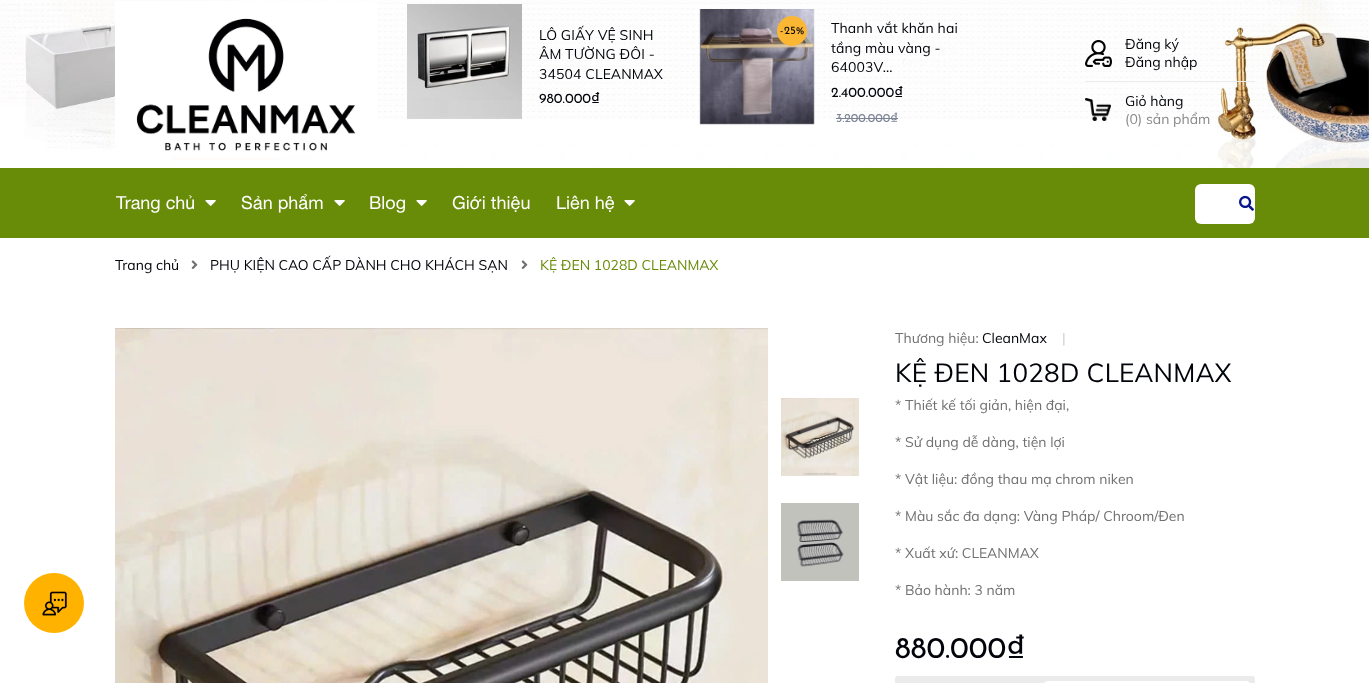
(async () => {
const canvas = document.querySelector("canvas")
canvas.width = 1369
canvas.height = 683
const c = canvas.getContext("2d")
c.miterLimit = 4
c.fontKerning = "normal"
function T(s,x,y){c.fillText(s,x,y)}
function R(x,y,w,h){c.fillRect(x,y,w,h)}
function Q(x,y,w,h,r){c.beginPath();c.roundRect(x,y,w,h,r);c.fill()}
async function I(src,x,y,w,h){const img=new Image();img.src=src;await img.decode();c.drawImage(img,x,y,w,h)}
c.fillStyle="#fff"
R(0,0,1369,683)
await I("1.png",0,0,1369,168)
await I("2.png",115,1,262,156)
await I("3.png",407,4,115,115)
c.letterSpacing="0.1px"
c.font="14px Muli"
c.fillStyle="#000309"
T("LÔ GIẤY VỆ SINH",539,40)
T("ÂM TƯỜNG ĐÔI -",539,59)
T("34504 CLEANMAX",539,79)
c.letterSpacing="0px"
c.font="14px Josefin Sans"
T("980.000₫",539,103)
await I("4.png",699,9,116,116)
c.fillStyle="#fbb733"
c.beginPath()
c.arc(792,31,15,0,7)
c.fill()
c.font="11px Josefin Sans"
c.fillStyle="#000309"
T("-",780,34)
T("25%",784,34)
c.letterSpacing="0.1px"
c.font="14px Muli"
T("Thanh vắt khăn hai",831,33)
T("tầng màu vàng -",831,53)
T("64003V…",831,72)
c.letterSpacing="0px"
c.font="14px Josefin Sans"
T("2.400.000₫",831,97)
c.font="12px Josefin Sans"
c.fillStyle="#7b8395"
T("3.200.000₫",836,122)
R(836,118,62,1)
c.fillStyle="#ebebeb"
R(1085,81,170,1)
await I("5.png",1085,40,27,27)
c.font="14px Muli"
c.fillStyle="#000309"
T("Đăng ký",1125,49)
T("Đăng nhập",1125,67)
await I("6.png",1085,98,26,23)
T("Giỏ hàng",1125,106)
c.fillStyle="#898989"
T("(0) sản phẩm",1125,124)
c.fillStyle="#688b08"
R(0,168,1369,70)
c.font="18px Helvetica Neue"
c.fillStyle="#fff"
T("Trang chủ",116,209)
await I("7.png",205,200,11,6)
T("Sản phẩm",241,209)
await I("7.png",334,200,11,6)
T("Blog",369,209)
await I("7.png",416,200,11,6)
T("Giới thiệu",452,209)
T("Liên hệ",556,209)
await I("7.png",624,200,11,6)
Q(1195,184,60,40,6)
await I("8.png",1239,195,15,16)
c.font="14px Muli"
c.fillStyle="#000309"
T("Trang chủ",115,270)
await I("9.png",191,260,7,9)
T("PHỤ KIỆN CAO CẤP DÀNH CHO KHÁCH SẠN",210,270)
await I("9.png",521,260,7,9)
c.fillStyle="#688b08"
T("KỆ ĐEN 1028D CLEANMAX",540,270)
c.fillStyle="#ffb300"
c.beginPath()
c.arc(54,603,30,0,7)
c.fill()
await I("10.png",42,591,25,25)
await I("11.png",115,328,653,355)
await I("12.png",781,398,78,78)
await I("13.png",781,503,78,78)
c.fillStyle="#707070"
T("Thương hiệu:",895,343)
c.fillStyle="#000309"
T("CleanMax",982,343)
c.fillStyle="#ccc"
T("|",1062,343)
c.letterSpacing="0.25px"
c.font="26px Muli"
c.fillStyle="#000309"
T("KỆ ĐEN 1028D CLEANMAX",895,382)
c.letterSpacing="0px"
c.font="14px Muli"
c.fillStyle="#707070"
T("* Thiết kế tối giản, hiện đại,",895,410)
T("* Sử dụng dễ dàng, tiện lợi",895,447)
T("* Vật liệu: đồng thau mạ chrom niken",895,484)
T("* Màu sắc đa dạng: Vàng Pháp/ Chroom/Đen",895,521)
T("* Xuất xứ: CLEANMAX",895,558)
T("* Bảo hành: 3 năm",895,595)
c.font="30px Josefin Sans"
c.fillStyle="#000309"
T("880.000₫",895,658)
c.fillStyle="#ebebeb"
Q(895,676,360,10,3)
c.beginPath()
c.roundRect(1045,682,204,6,3)
c.strokeStyle="#fff"
c.lineWidth=2
c.stroke()
})()
